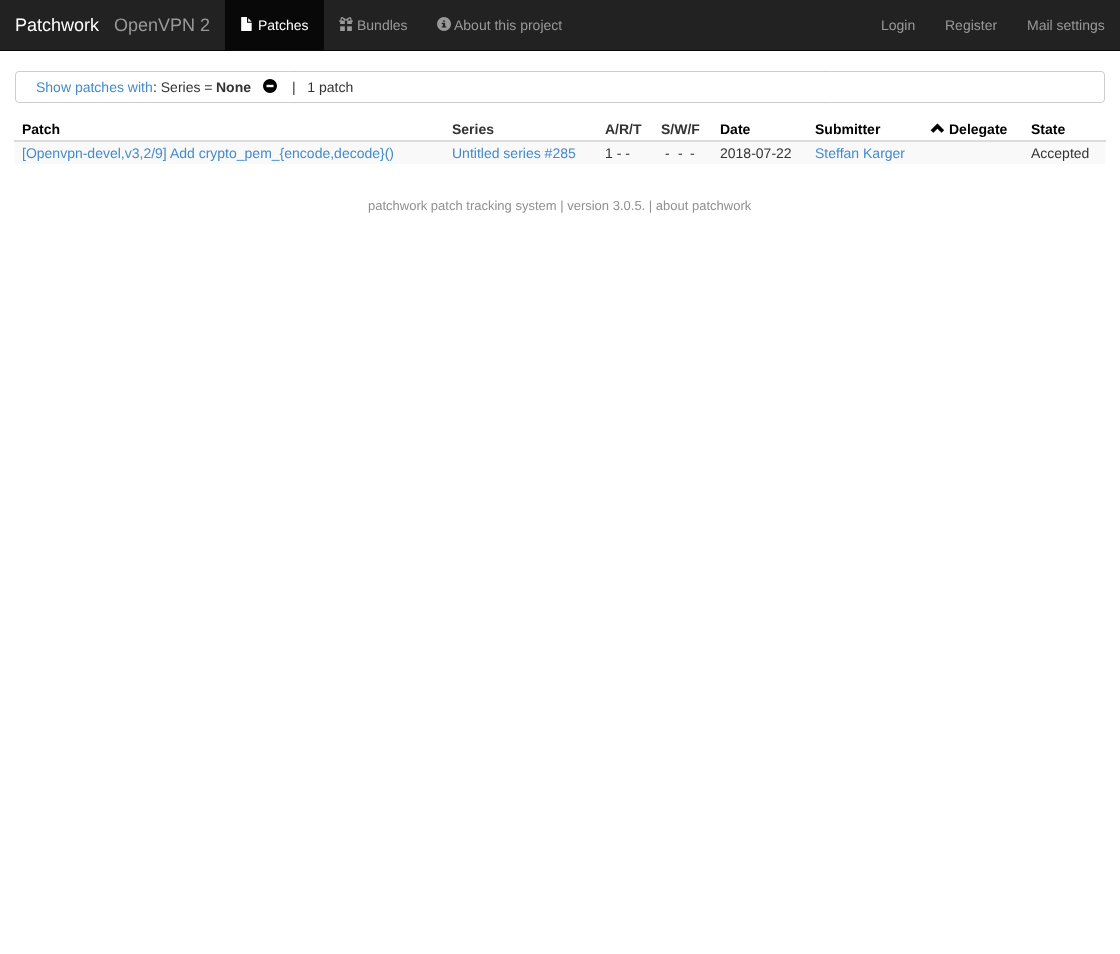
(async () => {
const canvas = document.querySelector("canvas")
canvas.width = 1120
canvas.height = 954
const c = canvas.getContext("2d")
c.miterLimit = 4
c.fontKerning = "normal"
function T(s,x,y){c.fillText(s,x,y)}
function R(x,y,w,h){c.fillRect(x,y,w,h)}
async function I(src,x,y,w,h){const img=new Image();img.src=src;await img.decode();c.drawImage(img,x,y,w,h)}
c.fillStyle="#fff"
R(0,0,1120,954)
c.fillStyle="#222"
R(0,0,1120,50)
c.fillStyle="#080808"
R(0,50,1120,1)
c.font="18px Liberation Sans"
c.fillStyle="#fff"
T("Patchwork",15,31)
c.fillStyle="#999"
T("OpenVPN 2",114,31)
c.fillStyle="#080808"
R(225,0,99,50)
await I("1.png",241,17,11,14)
c.font="14px Liberation Sans"
c.fillStyle="#fff"
T("Patches",258,30)
await I("2.png",339,17,14,14)
c.fillStyle="#999"
T("Bundles",357,30)
await I("3.png",437,17,14,14)
T("About this project",454,30)
T("Login",881,30)
T("Register",945,30)
T("Mail settings",1027,30)
c.beginPath()
c.roundRect(15.5,71.5,1089,31,3.5)
c.strokeStyle="#ccc"
c.stroke()
c.fillStyle="#428bca"
T("Show patches with",36,92)
c.fillStyle="#333"
T(": Series =",153,92)
c.font="bold 14px Liberation Sans"
T("None",216,92)
await I("4.png",263,79,14,14)
c.font="14px Liberation Sans"
T("|   1 patch",292,92)
c.font="bold 14px Liberation Sans"
c.fillStyle="#000"
T("Patch",22,134)
c.fillStyle="#333"
T("Series",452,134)
T("A/R/T",605,134)
T("S/W/F",661,134)
c.fillStyle="#000"
T("Date",720,134)
T("Submitter",815,134)
await I("5.png",930,123,15,10)
T("Delegate",949,134)
c.fillStyle="#ddd"
R(14,140,1092,2)
c.fillStyle="#000"
T("State",1031,134)
c.fillStyle="#f9f9f9"
R(15,142,1090,22)
c.font="14px Liberation Sans"
c.fillStyle="#428bca"
T("[Openvpn-devel,v3,2/9] Add crypto_pem_{encode,decode}()",22,158)
T("Untitled series #285",452,158)
c.fillStyle="#333"
T("1 - -",605,158)
T("-",665,158)
T("-",678,158)
T("-",690,158)
T("2018-07-22",720,158)
c.fillStyle="#428bca"
T("Steffan Karger",815,158)
c.fillStyle="#333"
T("Accepted",1031,158)
c.font="13px Liberation Sans"
c.fillStyle="#909090"
T("patchwork patch tracking system | version 3.0.5. | about patchwork",368,210)
})()
